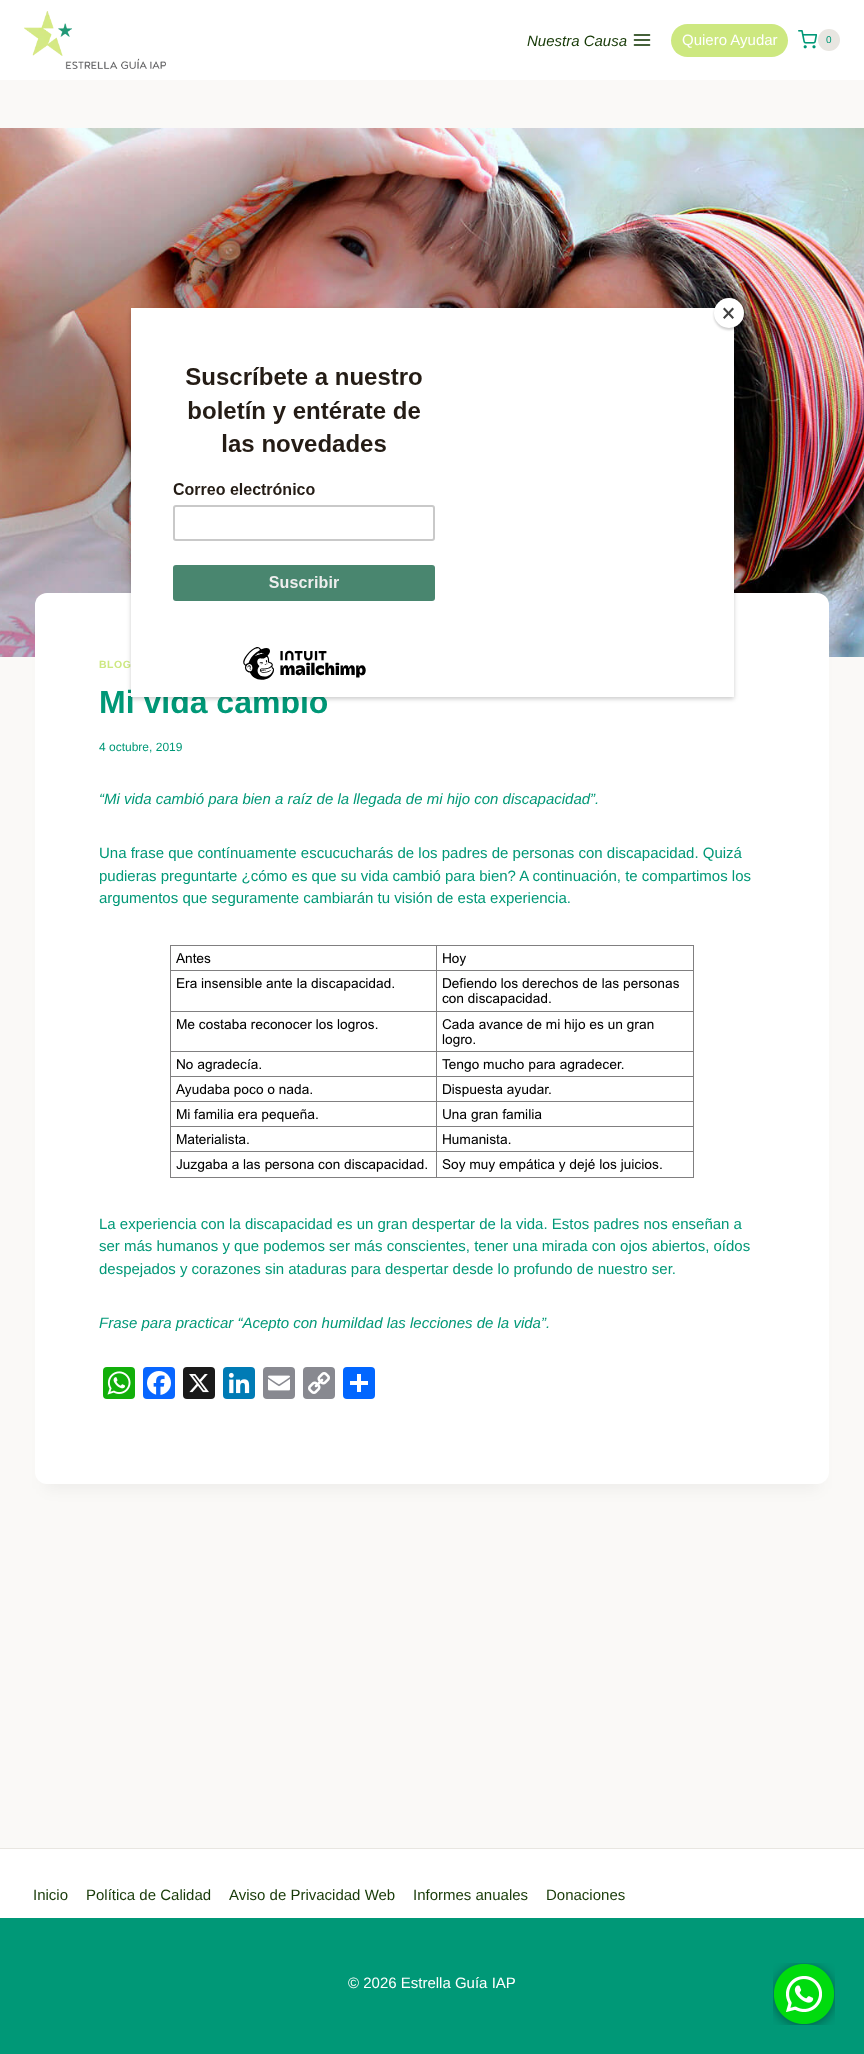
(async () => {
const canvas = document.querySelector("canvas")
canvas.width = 864
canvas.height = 2054
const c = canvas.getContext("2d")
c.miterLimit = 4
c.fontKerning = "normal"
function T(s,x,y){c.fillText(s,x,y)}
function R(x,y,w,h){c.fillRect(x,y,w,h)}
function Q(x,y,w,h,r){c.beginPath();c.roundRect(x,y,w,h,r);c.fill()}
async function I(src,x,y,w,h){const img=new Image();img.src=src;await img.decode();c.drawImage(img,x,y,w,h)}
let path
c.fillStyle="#faf9f7"
R(0,0,864,2054)
c.fillStyle="#fff"
R(0,0,864,80)
await I("1.png",24,11,142,58)
c.font="italic 15px Liberation Sans"
c.fillStyle="#173a07"
T("Nuestra Causa",527,46)
await I("2.png",633,34,18,12)
c.fillStyle="#cde880"
Q(671,24,117,33,16.5)
c.font="15px Liberation Sans"
c.fillStyle="#fff"
T("Quiero Ayudar",682,45)
await I("3.png",798,30,19,19)
c.fillStyle="#e8e6e1"
c.beginPath()
c.arc(829,40,11,0,7)
c.fill()
c.font="10px Liberation Sans"
c.fillStyle="#009877"
T("0",826,43)
await I("4.png",0,128,864,529)
c.fillStyle="#0000000d"
c.filter="blur(7.5px)"
c.beginPath()
c.roundRect(45,618,774,871,2)
c.fill()
c.filter="none"
c.fillStyle="#fff"
Q(35,593,794,891,12)
c.letterSpacing="0.5px"
c.font="bold 10.5px Liberation Sans"
c.fillStyle="#cde880"
T("BLOG",99,668)
c.letterSpacing="0px"
c.font="bold 32px Liberation Sans"
c.fillStyle="#009877"
T("Mi vida cambió",99,713)
c.font="12px Liberation Sans"
T("4 octubre, 2019",99,751)
c.font="italic 15px Liberation Sans"
T("“Mi vida cambió para bien a raíz de la llegada de mi hijo con discapacidad”.",99,804)
c.font="15px Liberation Sans"
T("Una frase que contínuamente escucucharás de los padres de personas con discapacidad. Quizá",99,858)
T("pudieras preguntarte ¿cómo es que su vida cambió para bien? A continuación, te compartimos los",99,881)
T("argumentos que seguramente cambiarán tu visión de esta experiencia.",99,903)
await I("5.png",170,945,524,233)
T("La experiencia con la discapacidad es un gran despertar de la vida. Estos padres nos enseñan a",99,1229)
T("ser más humanos y que podemos ser más conscientes, tener una mirada con ojos abiertos, oídos",99,1251)
T("despejados y corazones sin ataduras para despertar desde lo profundo de nuestro ser.",99,1274)
c.font="italic 15px Liberation Sans"
T("Frase para practicar “Acepto con humildad las lecciones de la vida”.",99,1328)
c.fillStyle="#12af0a"
Q(103,1367,32,32,4)
await I("6.png",107,1371,24,24)
c.fillStyle="#0866ff"
Q(143,1367,32,32,4)
await I("7.png",147,1371,24,24)
c.fillStyle="#1a1a1a"
Q(183,1367,32,32,4)
await I("8.png",189,1374,20,19)
c.fillStyle="#007bb5"
Q(223,1367,32,32,4)
await I("9.png",228,1372,22,22)
c.fillStyle="#888990"
Q(263,1367,32,32,4)
await I("10.png",268,1375,22,16)
Q(303,1367,32,32,4)
await I("11.png",308,1372,22,22)
c.fillStyle="#0166ff"
Q(343,1367,32,32,4)
c.fillStyle="#fff"
R(357,1374,4,18)
R(350,1381,18,4)
R(0,1849,864,69)
c.fillStyle="#e8e6e1"
R(0,1848,864,1)
c.font="15px Liberation Sans"
c.fillStyle="#173a07"
T("Inicio",33,1900)
T("Política de Calidad",86,1900)
T("Aviso de Privacidad Web",229,1900)
T("Informes anuales",413,1900)
T("Donaciones",546,1900)
c.fillStyle="#009877"
R(0,1918,864,136)
c.fillStyle="#fff"
T("© 2026 Estrella Guía IAP",348,1988)
c.fillStyle="#00000033"
c.filter="blur(2px)"
c.beginPath()
c.rect(131,310,603,389)
c.fill()
c.filter="none"
await I("12.png",131,308,603,389)
c.filter="blur(1px)"
c.beginPath()
c.roundRect(714,300,30,30,15)
c.fill()
c.filter="none"
c.fillStyle="#fff"
c.beginPath()
c.arc(729,313,15,0,7)
c.fill()
c.fillStyle="#414141"
path = new Path2D("M732.5 307.5l1.5 1.5l-9.5 10l-1.5-1.5z")
c.fill(path)
path = new Path2D("M723 309l1.5-1.5l9.5 10l-1.5 1.5z")
c.fill(path)
await I("13.png",773,1963,62,62)
})()
